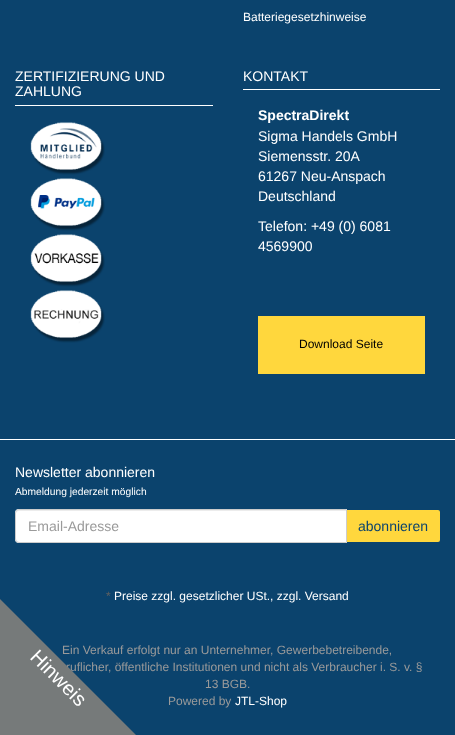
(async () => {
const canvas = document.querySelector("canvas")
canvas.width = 455
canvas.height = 735
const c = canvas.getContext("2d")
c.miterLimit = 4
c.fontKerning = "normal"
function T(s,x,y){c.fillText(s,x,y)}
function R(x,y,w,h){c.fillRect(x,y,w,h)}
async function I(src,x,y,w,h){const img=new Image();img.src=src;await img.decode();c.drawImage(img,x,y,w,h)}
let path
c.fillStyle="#0b436d"
R(0,0,455,735)
c.font="12px Liberation Sans"
c.fillStyle="#fff"
T("Batteriegesetzhinweise",243,21)
R(15,105,198,1)
c.font="14px Liberation Sans"
T("ZERTIFIZIERUNG UND",15,81)
T("ZAHLUNG",15,96)
await I("1.png",30,122,75,53)
await I("2.png",30,178,75,53)
await I("3.png",30,234,75,53)
await I("4.png",30,290,75,53)
R(243,89,197,1)
T("KONTAKT",243,81)
c.font="bold 14px Liberation Sans"
T("SpectraDirekt",258,120)
c.font="14px Liberation Sans"
T("Sigma Handels GmbH",258,141)
T("Siemensstr. 20A",258,161)
T("61267 Neu-Anspach",258,181)
T("Deutschland",258,201)
T("Telefon: +49 (0) 6081",258,231)
T("4569900",258,251)
c.fillStyle="#ffd73d"
R(258,316,167,58)
c.font="12px Liberation Sans"
c.fillStyle="#000"
T("Download Seite",299,348)
c.fillStyle="#fff"
R(0,439,455,1)
c.font="14px Liberation Sans"
T("Newsletter abonnieren",15,477)
c.font="10.25px Liberation Sans"
T("Abmeldung jederzeit möglich",15,495)
c.fillStyle="#ffd73d"
c.beginPath()
c.roundRect(346,510,94,32,[0,2,2,0])
c.fill()
c.fillStyle="#fff"
c.beginPath()
c.roundRect(15,509,332,34,[4,0,0,4])
c.fill()
c.fillStyle="#ececec"
path = new Path2D("M19 511h327v-1h-327c-2 0-3 2-3 4c0-2 1-3 3-3z")
c.fill(path)
c.beginPath()
c.roundRect(15.5,509.5,331,33,[3.5,0,0,3.5])
c.strokeStyle="#ccc"
c.stroke()
c.font="14px Liberation Sans"
c.fillStyle="#9a9a9a"
T("Email-Adresse",28,531)
c.fillStyle="#0b436d"
T("abonnieren",358,531)
c.font="12px Liberation Sans"
c.fillStyle="#606060"
T("*",106,600)
c.fillStyle="#fff"
T("Preise zzgl. gesetzlicher USt., zzgl. Versand",114,600)
c.fillStyle="#9a9a9a"
T("Ein Verkauf erfolgt nur an Unternehmer, Gewerbebetreibende,",62,654)
T("ruflicher, öffentliche Institutionen und nicht als Verbraucher i. S. v. §",66,671)
T("13 BGB.",205,688)
T("Powered by",168,705)
c.fillStyle="#fff"
T("JTL-Shop",235,705)
c.fillStyle="#767a7a"
path = new Path2D("M-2 597l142 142l-88 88l-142-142z")
c.fill(path)
c.font="20px Liberation Sans"
c.fillStyle="#fff"
c.save()
c.translate(29,658)
c.rotate(45 * Math.PI / 180)
c.fillText("Hinweis",0,0)
c.restore()
})()
